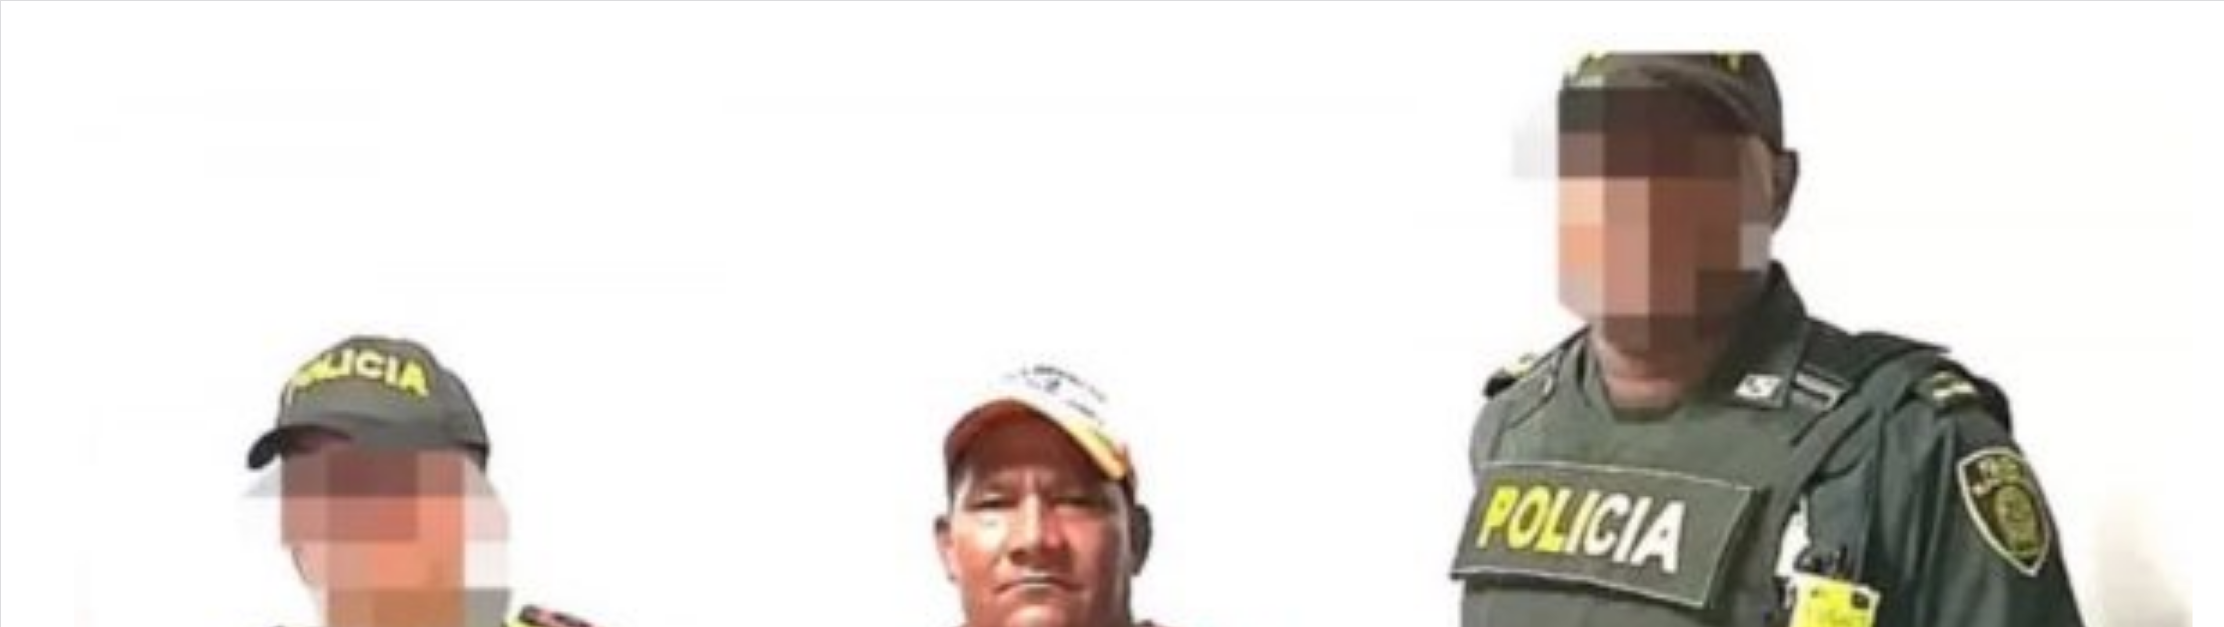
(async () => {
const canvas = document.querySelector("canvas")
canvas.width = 2224
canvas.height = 627
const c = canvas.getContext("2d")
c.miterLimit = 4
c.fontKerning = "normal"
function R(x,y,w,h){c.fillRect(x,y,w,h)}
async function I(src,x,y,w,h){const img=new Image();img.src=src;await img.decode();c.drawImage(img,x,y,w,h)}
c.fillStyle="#fff"
R(0,0,2224,627)
c.strokeStyle="#dcdcde"
c.strokeRect(.5,.5,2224,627)
await I("1.png",74,32,2119,595)
})()
